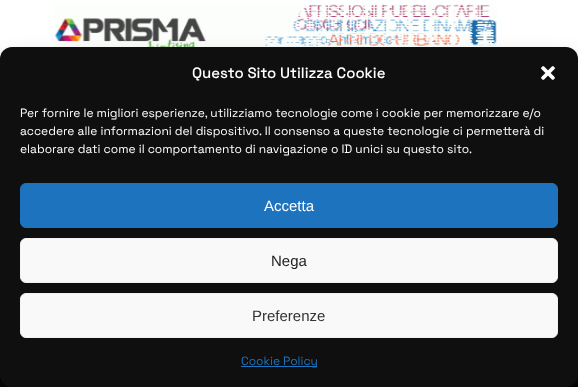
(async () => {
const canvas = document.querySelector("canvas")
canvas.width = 578
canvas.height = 387
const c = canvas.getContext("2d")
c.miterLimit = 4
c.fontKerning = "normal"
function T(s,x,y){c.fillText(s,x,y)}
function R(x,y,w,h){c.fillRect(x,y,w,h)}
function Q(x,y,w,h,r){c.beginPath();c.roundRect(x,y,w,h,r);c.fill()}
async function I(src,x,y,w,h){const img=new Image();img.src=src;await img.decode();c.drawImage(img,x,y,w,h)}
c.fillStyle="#fff"
R(0,0,578,387)
await I("1.png",54,4,443,43)
await I("2.png",0,375,578,12)
c.fillStyle="#0000003b"
c.filter="blur(3px)"
c.beginPath()
c.roundRect(0,53,578,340,12)
c.fill()
c.filter="none"
c.fillStyle="#00000030"
c.filter="blur(10px)"
c.beginPath()
c.roundRect(0,57,578,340,12)
c.fill()
c.filter="none"
c.fillStyle="#0f0f0f"
Q(0,47,578,340,12)
c.font="500 15px Space Grotesk"
c.fillStyle="#fff"
T("Questo Sito Utilizza Cookie",192,78)
await I("3.png",541,66,14,14)
c.font="12px Space Grotesk"
T("Per fornire le migliori esperienze, utilizziamo tecnologie come i cookie per memorizzare e/o",20,117)
T("accedere alle informazioni del dispositivo. Il consenso a queste tecnologie ci permetterà di",20,135)
T("elaborare dati come il comportamento di navigazione o ID unici su questo sito.",20,153)
c.fillStyle="#1e73be"
c.beginPath()
c.roundRect(20.5,183.5,537,44,5.5)
c.fill()
c.strokeStyle="#1e73be"
c.stroke()
c.font="15px Liberation Sans"
c.fillStyle="#fff"
T("Accetta",264,211)
c.fillStyle="#f9f9f9"
c.beginPath()
c.roundRect(20.5,238.5,537,44,5.5)
c.fill()
c.strokeStyle="#f2f2f2"
c.stroke()
c.fillStyle="#222"
T("Nega",271,266)
c.fillStyle="#f9f9f9"
c.beginPath()
c.roundRect(20.5,293.5,537,44,5.5)
c.fill()
c.stroke()
c.fillStyle="#333"
T("Preferenze",252,321)
c.fillStyle="#1e73be"
R(241,366,76,1)
c.font="12px Space Grotesk"
T("Cookie Policy",241,365)
})()
